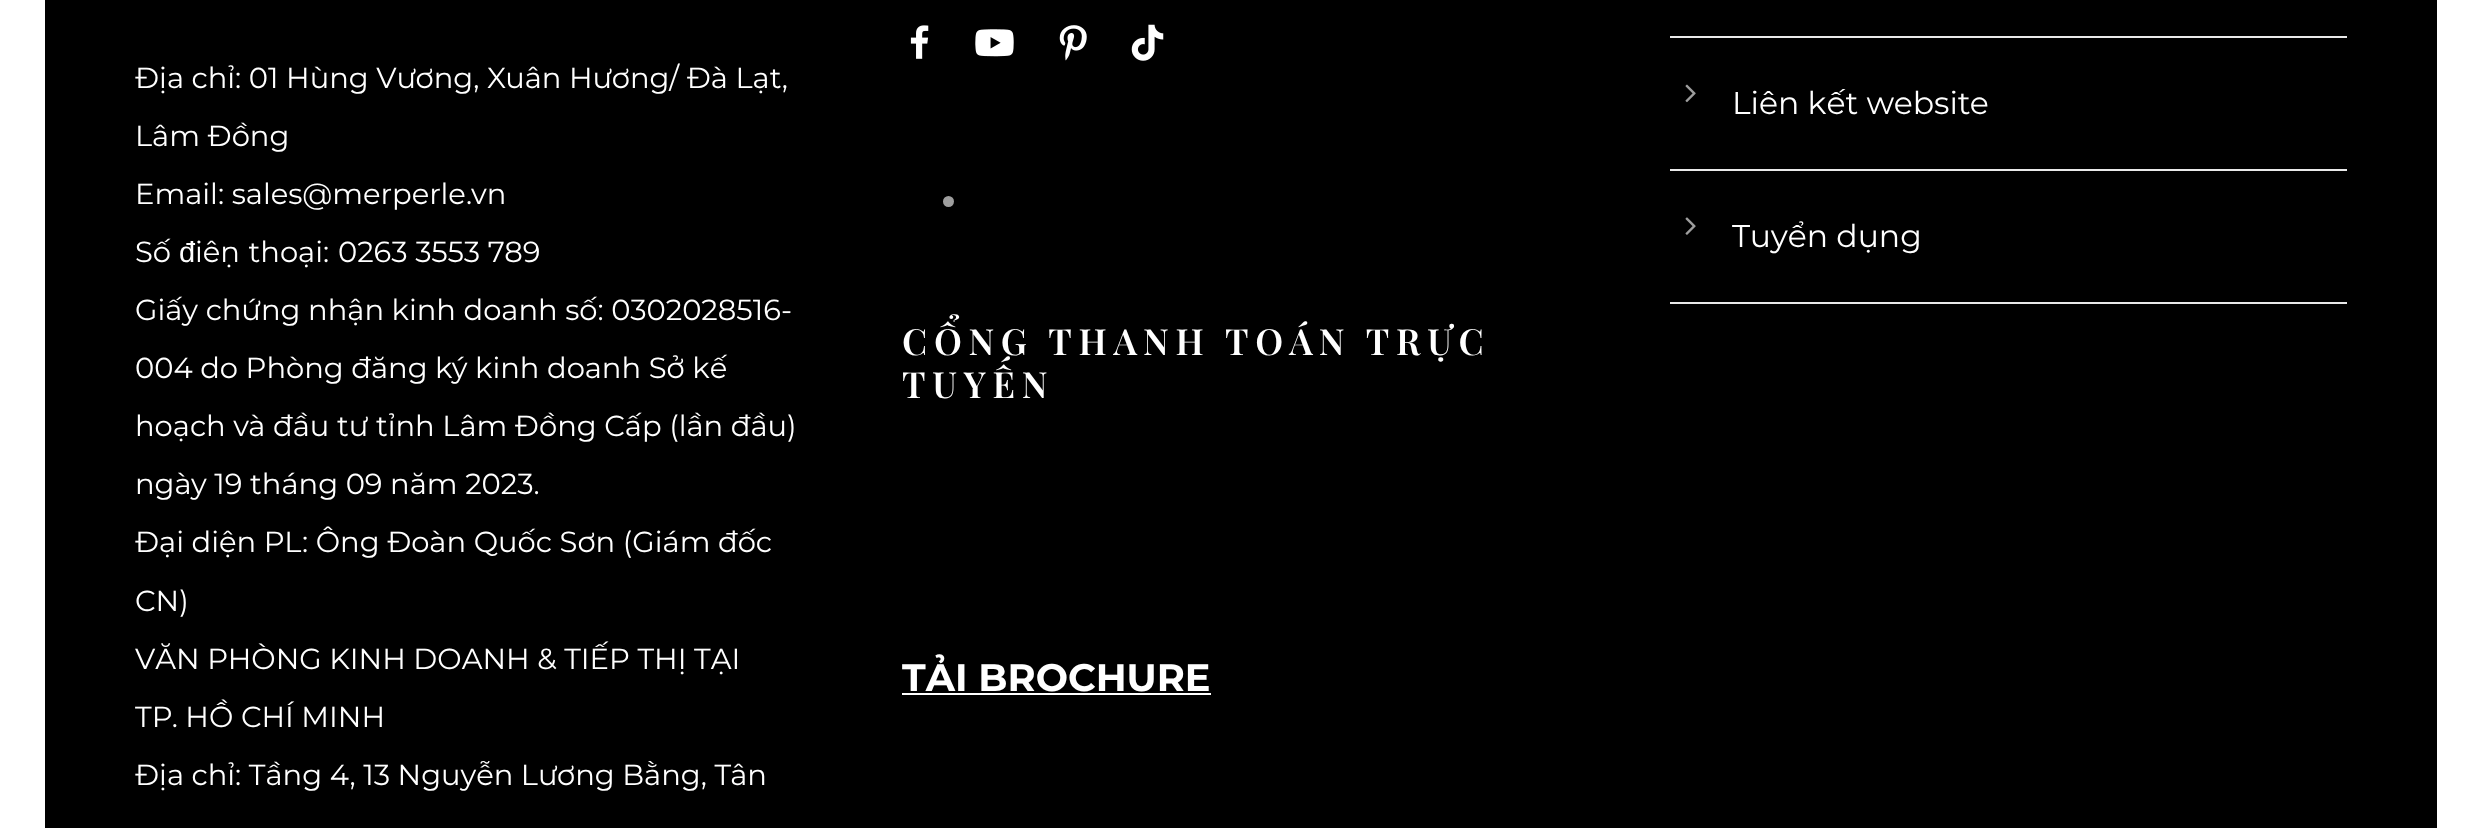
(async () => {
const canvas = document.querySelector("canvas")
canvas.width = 2480
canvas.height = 828
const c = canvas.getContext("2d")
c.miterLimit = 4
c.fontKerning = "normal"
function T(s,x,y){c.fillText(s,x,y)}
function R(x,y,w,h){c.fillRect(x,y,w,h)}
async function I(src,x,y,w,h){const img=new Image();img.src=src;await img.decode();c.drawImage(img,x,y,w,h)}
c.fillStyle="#fff"
R(0,0,2480,828)
c.fillStyle="#000"
R(45,0,2392,828)
c.font="29px Montserrat"
c.fillStyle="#fff"
T("Địa chỉ: 01 Hùng Vương, Xuân Hương/ Đà Lạt,",135,88)
T("Lâm Đồng",135,146)
T("Email: sales@merperle.vn",135,204)
T("Số",135,262)
c.font="29px Liberation Sans"
T("đ",179,262)
c.wordSpacing="1px"
c.font="29px Montserrat"
T("iện thoại:",195,262)
c.wordSpacing="0px"
T("0263 3553 789",338,262)
T("Giấy chứng nhận kinh doanh số: 0302028516-",135,320)
T("004 do Phòng đăng ký kinh doanh Sở kế",135,378)
T("hoạch và đầu tư tỉnh Lâm Đồng Cấp (lần đầu)",135,436)
T("ngày 19 tháng 09 năm 2023.",135,494)
T("Đại diện PL: Ông Đoàn Quốc Sơn (Giám đốc",135,552)
T("CN)",135,611)
T("VĂN PHÒNG KINH DOANH & TIẾP THỊ TẠI",135,669)
T("TP. HỒ CHÍ MINH",135,727)
T("Địa chỉ: Tầng 4, 13 Nguyễn Lương Bằng, Tân",135,785)
c.fillStyle="#e9e9e9"
R(1670,36,677,2)
R(1670,169,677,2)
await I("1.png",1685,84,11,19)
c.font="31.5px Montserrat"
c.fillStyle="#fff"
T("Liên kết website",1732,114)
c.fillStyle="#e9e9e9"
R(1670,302,677,2)
await I("2.png",1685,217,11,18)
c.fillStyle="#fff"
T("Tuyển dụng",1732,247)
await I("3.png",910,25,19,34)
await I("4.png",975,29,39,28)
await I("5.png",1059,25,28,36)
await I("6.png",1131,24,33,37)
c.fillStyle="#9e9e9e"
c.beginPath()
c.arc(948.5,201.5,5.5,0,7)
c.fill()
c.letterSpacing="6.75px"
c.font="600 36px Playfair Display"
c.fillStyle="#fff"
T("CỔNG THANH TOÁN TRỰC",902,355)
T("TUYẾN",902,398)
c.letterSpacing="0px"
c.font="bold 38.25px Montserrat"
T("TẢI BROCHURE",902,691)
R(902,693,309,2)
})()
